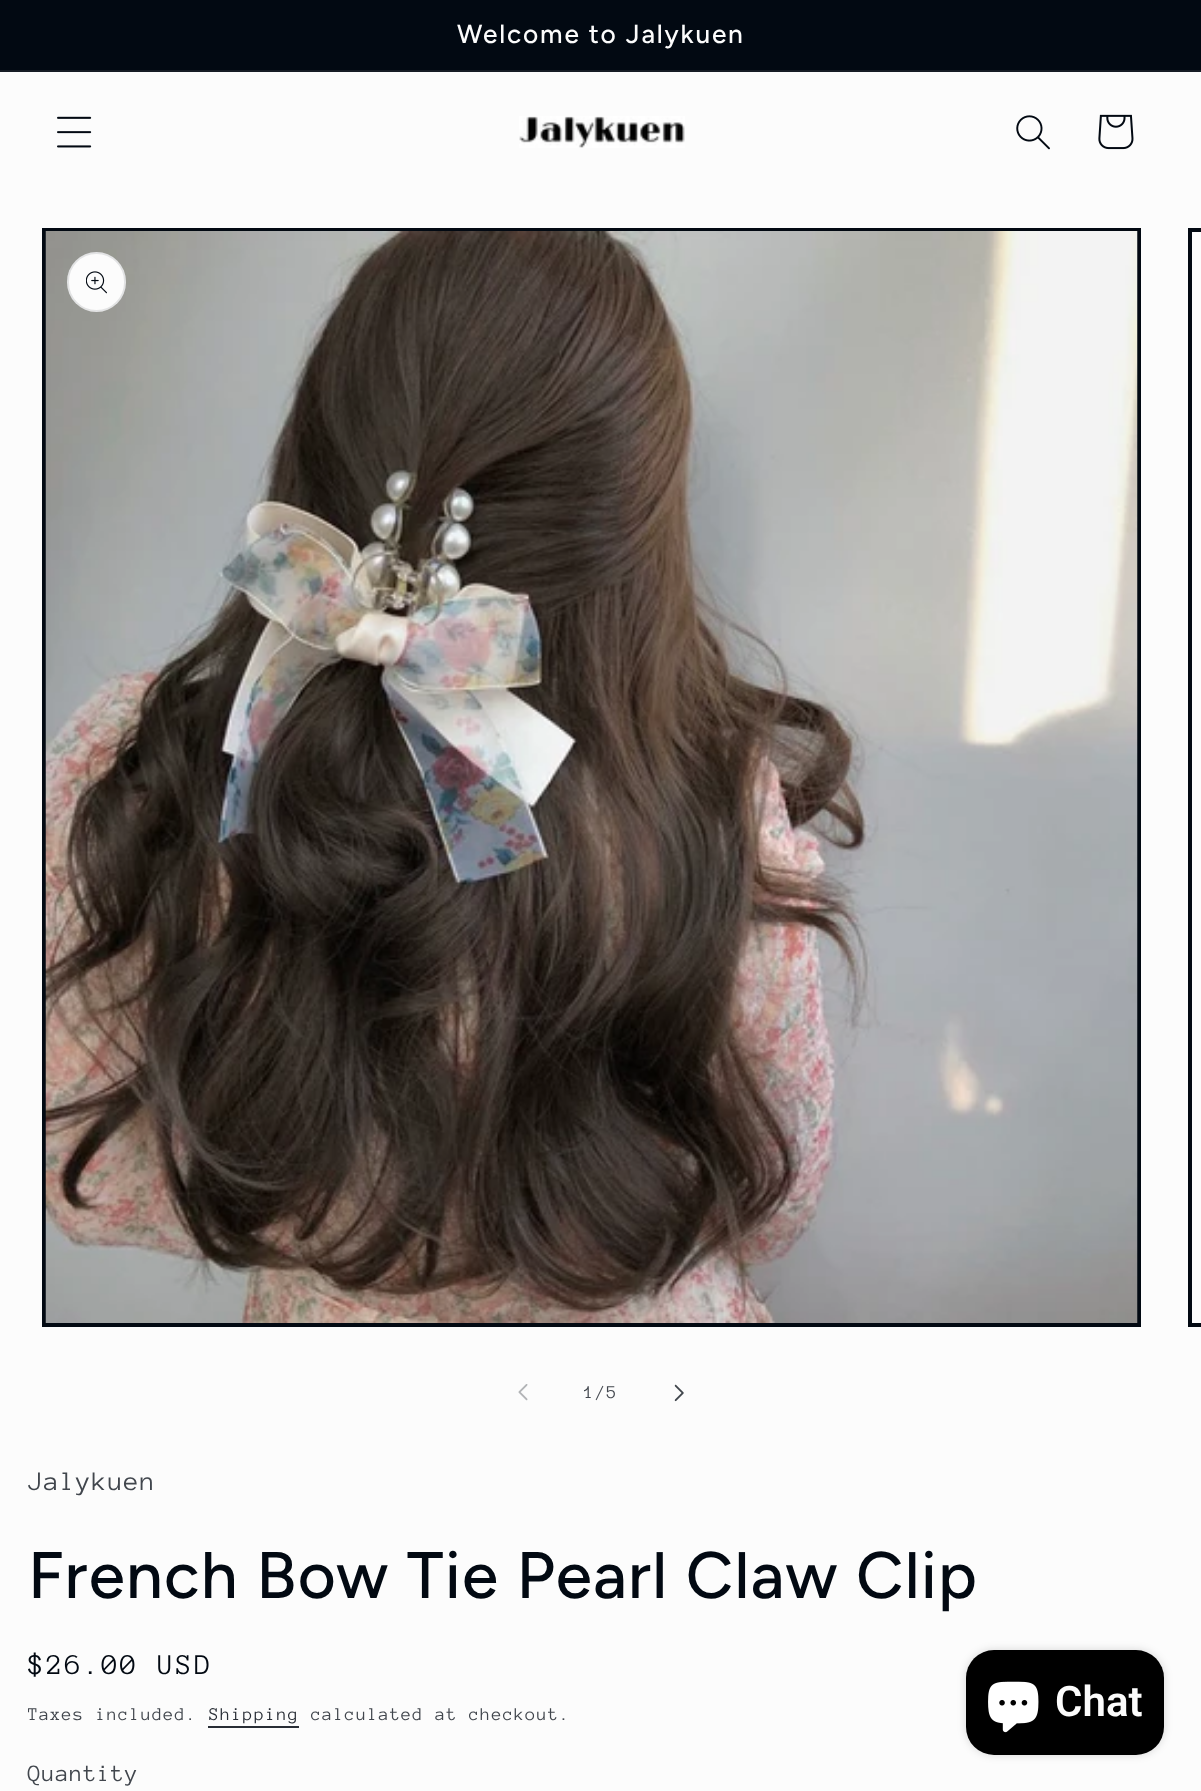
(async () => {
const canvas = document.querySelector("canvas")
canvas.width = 1201
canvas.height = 1791
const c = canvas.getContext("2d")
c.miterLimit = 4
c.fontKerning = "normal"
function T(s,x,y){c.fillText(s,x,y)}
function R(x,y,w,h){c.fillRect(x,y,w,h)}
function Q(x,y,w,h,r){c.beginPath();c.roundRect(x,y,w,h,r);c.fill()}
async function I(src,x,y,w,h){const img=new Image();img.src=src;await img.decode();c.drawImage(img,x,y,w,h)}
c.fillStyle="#fcfcfc"
R(0,0,1201,1791)
c.fillStyle="#020912"
R(0,0,1201,70)
c.fillStyle="#161c25"
R(0,70,1201,2)
c.letterSpacing="1.8px"
c.font="500 26.25px Figtree"
c.fillStyle="#fcfcfc"
T("Welcome to Jalykuen",457,43)
await I("1.png",57,116,35,32)
await I("2.png",519,116,166,32)
await I("3.png",1016,115,34,35)
await I("4.png",1098,114,36,36)
c.strokeStyle="#020912"
c.lineWidth=4
c.strokeRect(44,230,1095,1095)
await I("5.png",45,231,1093,1092)
Q(67,252,59,60,29.5)
c.beginPath()
c.roundRect(68,253,57,58,28.5)
c.strokeStyle="#0209121a"
c.lineWidth=2
c.stroke()
await I("6.png",86,271,21,23)
c.strokeStyle="#020912"
c.lineWidth=4
c.strokeRect(1190,230,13,1095)
await I("7.png",518,1384,10,17)
c.letterSpacing="1.25px"
c.font="18.4px Anonymous Pro"
c.fillStyle="#41464d"
T("1/5",584,1398)
await I("8.png",674,1384,10,18)
c.letterSpacing="1px"
c.font="27.5px Anonymous Pro"
T("Jalykuen",28,1490)
c.letterSpacing="1.3px"
c.font="500 65.6px Figtree"
c.fillStyle="#020912"
T("French Bow Tie Pearl Claw Clip",28,1598)
c.letterSpacing="2.4px"
c.font="29.5px Anonymous Pro"
T("$26.00 USD",28,1674)
c.letterSpacing="1.25px"
c.font="18.4px Anonymous Pro"
c.fillStyle="#41464d"
T("Taxes included.",28,1720)
c.fillStyle="#282d35"
T("Shipping",209,1720)
R(208,1726,91,2)
c.fillStyle="#41464d"
T("calculated at checkout.",311,1720)
c.letterSpacing="0.75px"
c.font="24px Anonymous Pro"
T("Quantity",28,1781)
c.fillStyle="#00000026"
c.filter="blur(4.5px)"
c.beginPath()
c.roundRect(966,1650,198,105,28)
c.fill()
c.filter="none"
c.fillStyle="#000"
Q(966,1650,198,105,28)
await I("9.png",988,1681,51,52)
c.letterSpacing="0px"
c.font="600 42px Roboto"
c.fillStyle="#fcfcfc"
T("Chat",1055,1716)
})()
